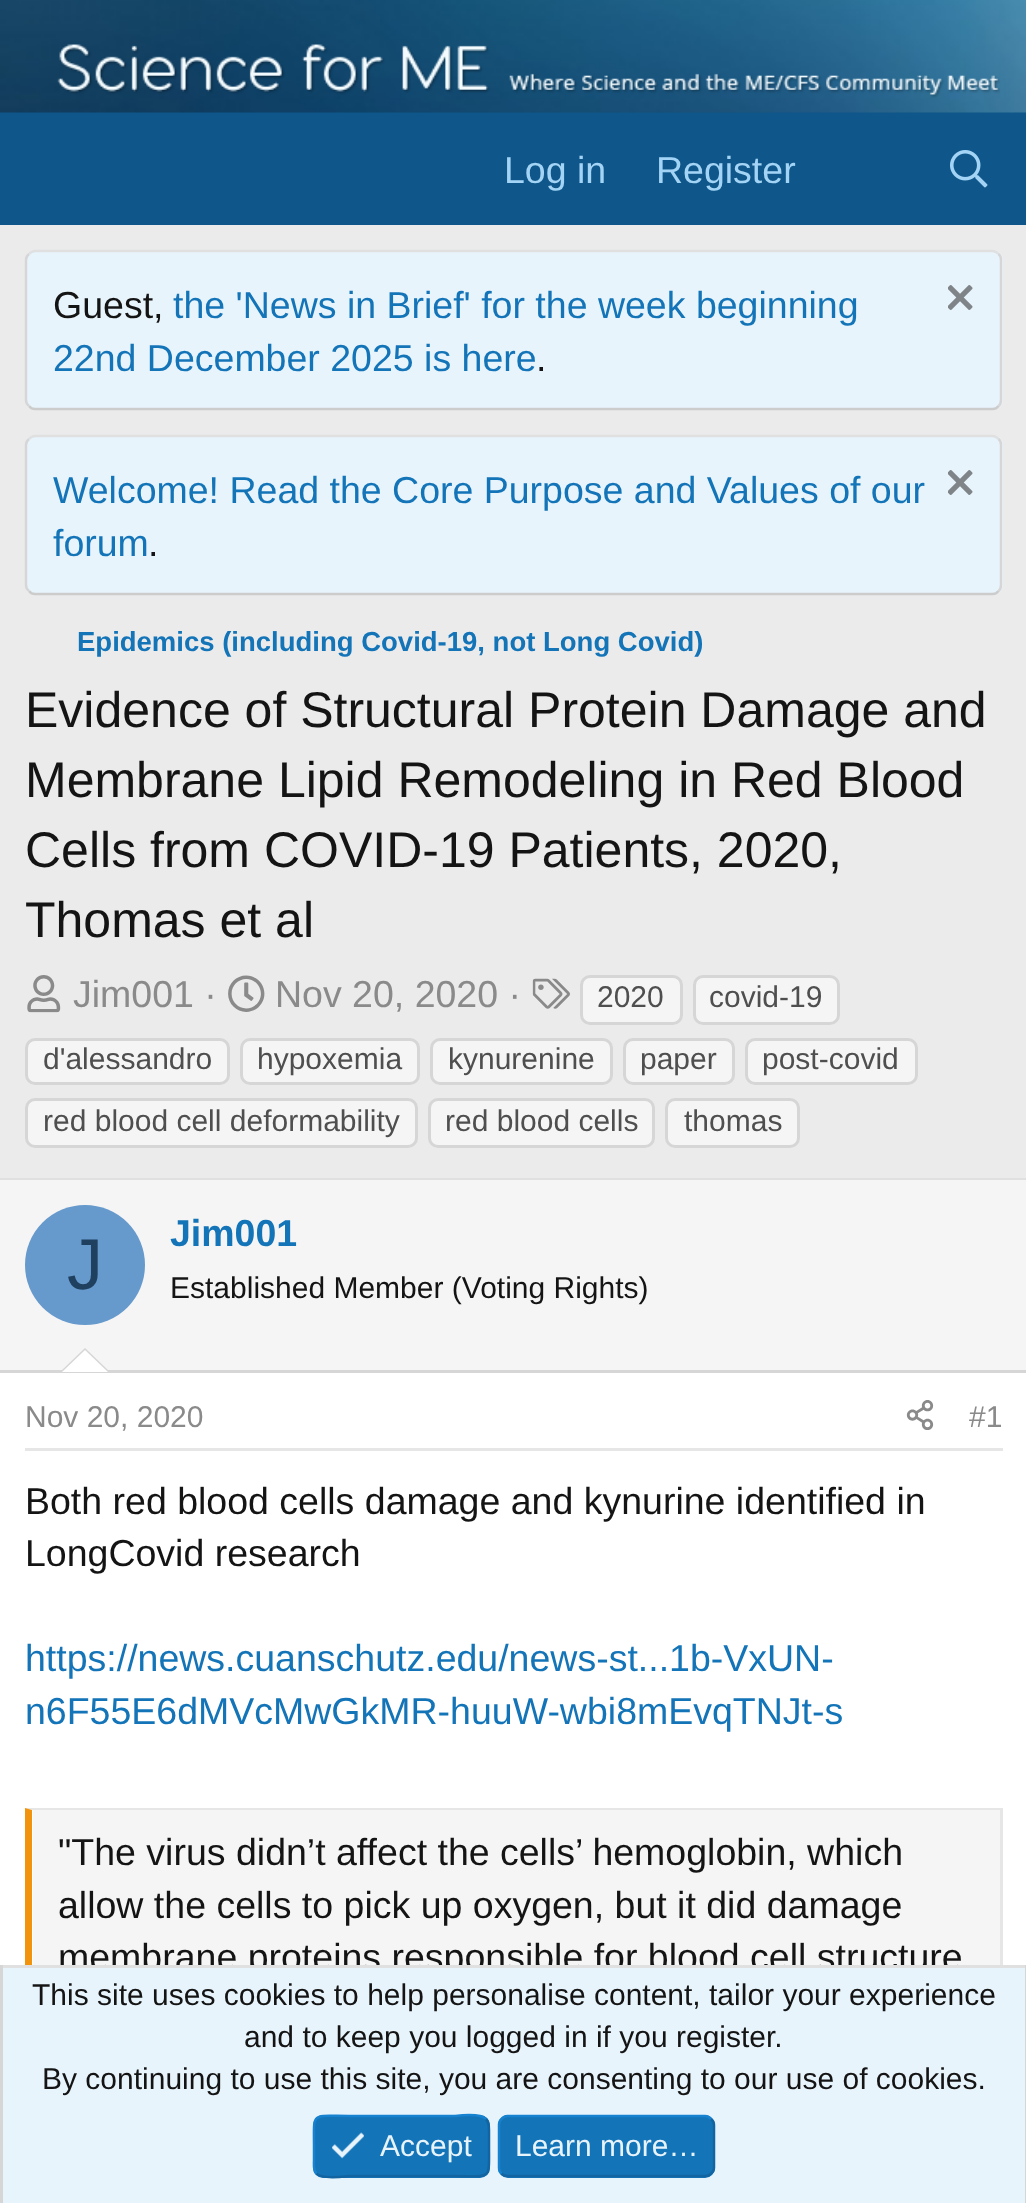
(async () => {
const canvas = document.querySelector("canvas")
canvas.width = 1026
canvas.height = 2203
const c = canvas.getContext("2d")
c.miterLimit = 4
c.fontKerning = "normal"
function T(s,x,y){c.fillText(s,x,y)}
function R(x,y,w,h){c.fillRect(x,y,w,h)}
function Q(x,y,w,h,r){c.beginPath();c.roundRect(x,y,w,h,r);c.fill()}
async function I(src,x,y,w,h){const img=new Image();img.src=src;await img.decode();c.drawImage(img,x,y,w,h)}
let path
c.fillStyle="#ebebeb"
R(0,0,1026,2203)
c.fillStyle="#0f578a"
R(0,112,1026,113)
await I("1.png",0,0,1026,113)
await I("2.png",57,44,943,54)
c.font="37.5px Liberation Sans"
c.fillStyle="#a3d4f5"
T("Log in",504,183)
T("Register",656,183)
await I("3.png",950,150,38,38)
c.fillStyle="#e8f4fc"
Q(25,250,978,160,10)
path = new Path2D("M29 254c1.5-2 3.5-3 6-3h957.5c2.5 0 4.5 1 6 3")
c.strokeStyle="#e0e0e0"
c.lineWidth=2.5
c.stroke(path)
path = new Path2D("M998.5 254c2 1.5 2.5 3.5 2.5 6v140c0 2.5-.5 4.5-2.5 6")
c.strokeStyle="#d6d6d6"
c.stroke(path)
path = new Path2D("M998.5 406c-1.5 2-3.5 3-6 3h-957.5c-2.5 0-4.5-1-6-3")
c.strokeStyle="#ccc"
c.stroke(path)
path = new Path2D("M29 406c-2-1.5-3-3.5-3-6v-140c0-2.5 1-4.5 3-6")
c.strokeStyle="#d6d6d6"
c.stroke(path)
c.fillStyle="#141414"
T("Guest,",53,318)
c.fillStyle="#1474b8"
T("the 'News in Brief' for the week beginning",173,318)
await I("4.png",948,285,25,25)
T("22nd December 2025 is here",53,371)
c.fillStyle="#141414"
T(".",536,371)
c.fillStyle="#e8f4fc"
Q(25,435,978,160,10)
path = new Path2D("M29 439c1.5-2 3.5-3 6-3h957.5c2.5 0 4.5 1 6 3")
c.strokeStyle="#e0e0e0"
c.stroke(path)
path = new Path2D("M998.5 439c2 1.5 2.5 3.5 2.5 6v140c0 2.5-.5 4.5-2.5 6")
c.strokeStyle="#d6d6d6"
c.stroke(path)
path = new Path2D("M998.5 591c-1.5 2-3.5 3-6 3h-957.5c-2.5 0-4.5-1-6-3")
c.strokeStyle="#ccc"
c.stroke(path)
path = new Path2D("M29 591c-2-1.5-3-3.5-3-6v-140c0-2.5 1-4.5 3-6")
c.strokeStyle="#d6d6d6"
c.stroke(path)
c.fillStyle="#1474b8"
T("Welcome! Read the Core Purpose and Values of our",53,503)
await I("4.png",948,470,25,25)
T("forum",53,556)
c.fillStyle="#141414"
T(".",148,556)
c.font="bold 27.5px Liberation Sans"
c.fillStyle="#1474b8"
T("Epidemics (including Covid-19, not Long Covid)",77,651)
c.font="50px Liberation Sans"
c.fillStyle="#141414"
T("Evidence of Structural Protein Damage and",25,727)
T("Membrane Lipid Remodeling in Red Blood",25,797)
T("Cells from COVID-19 Patients, 2020,",25,867)
T("Thomas et al",25,937)
await I("5.png",27,975,34,38)
c.font="37.5px Liberation Sans"
c.fillStyle="#8a8a8a"
T("Jim001 ·",73,1007)
await I("6.png",228,975,37,37)
T("Nov 20, 2020 ·",275,1007)
await I("7.png",532,978,38,31)
c.fillStyle="#f5f5f5"
c.beginPath()
c.roundRect(581.5,976.5,100,47,8.5)
c.fill()
c.lineWidth=3
c.stroke()
c.font="30px Liberation Sans"
c.fillStyle="#4f4f4f"
T("2020",597,1007)
c.fillStyle="#f5f5f5"
c.beginPath()
c.roundRect(694.5,976.5,144,47,8.5)
c.fill()
c.stroke()
c.fillStyle="#4f4f4f"
T("covid-19",709,1007)
c.fillStyle="#f5f5f5"
c.beginPath()
c.roundRect(26.5,1039.5,202,44,8.5)
c.fill()
c.stroke()
c.fillStyle="#4f4f4f"
T("d'alessandro",43,1069)
c.fillStyle="#f5f5f5"
c.beginPath()
c.roundRect(241.5,1039.5,177,44,8.5)
c.fill()
c.stroke()
c.fillStyle="#4f4f4f"
T("hypoxemia",257,1069)
c.fillStyle="#f5f5f5"
c.beginPath()
c.roundRect(431.5,1039.5,180,44,8.5)
c.fill()
c.stroke()
c.fillStyle="#4f4f4f"
T("kynurenine",448,1069)
c.fillStyle="#f5f5f5"
c.beginPath()
c.roundRect(624.5,1039.5,109,44,8.5)
c.fill()
c.stroke()
c.fillStyle="#4f4f4f"
T("paper",640,1069)
c.fillStyle="#f5f5f5"
c.beginPath()
c.roundRect(746.5,1039.5,170,44,8.5)
c.fill()
c.stroke()
c.fillStyle="#4f4f4f"
T("post-covid",762,1069)
c.fillStyle="#f5f5f5"
c.beginPath()
c.roundRect(26.5,1099.5,390,47,8.5)
c.fill()
c.stroke()
c.fillStyle="#4f4f4f"
T("red blood cell deformability",43,1131)
c.fillStyle="#f5f5f5"
c.beginPath()
c.roundRect(429.5,1099.5,224,47,8.5)
c.fill()
c.stroke()
c.fillStyle="#4f4f4f"
T("red blood cells",445,1131)
c.fillStyle="#f5f5f5"
c.beginPath()
c.roundRect(666.5,1099.5,132,47,8.5)
c.fill()
c.stroke()
c.fillStyle="#4f4f4f"
T("thomas",684,1131)
c.fillStyle="#fff"
R(0,1373,1026,592)
c.fillStyle="#e0e0e0"
R(0,1178,1026,2)
c.fillStyle="#f5f5f5"
R(0,1180,1026,190)
c.fillStyle="#d6d6d6"
R(0,1370,1026,3)
c.fillStyle="#69c"
c.beginPath()
c.arc(85,1265,60,0,7)
c.fill()
c.font="72px Liberation Sans"
c.fillStyle="#204060"
T("J",67,1289)
c.font="bold 37.5px Liberation Sans"
c.fillStyle="#1474b8"
T("Jim001",170,1246)
c.font="30px Liberation Sans"
c.fillStyle="#141414"
T("Established Member (Voting Rights)",170,1298)
c.fillStyle="#d6d6d6"
path = new Path2D("M110 1372h-50l25-24z")
c.fill(path)
c.fillStyle="#fff"
path = new Path2D("M108 1372h-46l23-22z")
c.fill(path)
c.fillStyle="#e6e6e6"
R(25,1448,978,3)
c.fillStyle="#8a8a8a"
T("Nov 20, 2020",25,1427)
await I("8.png",906,1400,28,30)
T("#1",969,1427)
c.font="37.5px Liberation Sans"
c.fillStyle="#141414"
T("Both red blood cells damage and kynurine identified in",25,1514)
T("LongCovid research",25,1566)
c.fillStyle="#1474b8"
T("https://news.cuanschutz.edu/news-st...1b-VxUN-",25,1671)
T("n6F55E6dMVcMwGkMR-huuW-wbi8mEvqTNJt-s",25,1724)
c.fillStyle="#f5f5f5"
R(33,1810,967,155)
c.fillStyle="#e6e6e6"
path = new Path2D("M25 1808h977l-2 2h-968z")
c.fill(path)
R(1000,1808,3,157)
c.fillStyle="#f2930d"
path = new Path2D("M25 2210v-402l7 2v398z")
c.fill(path)
c.fillStyle="#141414"
T("\"The virus didn’t affect the cells’ hemoglobin, which",58,1865)
T("allow the cells to pick up oxygen, but it did damage",58,1918)
T("membrane proteins responsible for blood cell structure",58,1970)
c.fillStyle="#e8f4fc"
R(3,1968,1022,235)
c.fillStyle="#e0e0e0"
R(0,1965,1026,3)
c.fillStyle="#d6d6d6"
R(1025,1965,1,238)
R(0,1965,3,238)
c.font="30px Liberation Sans"
c.fillStyle="#141414"
T("This site uses cookies to help personalise content, tailor your experience",32,2005)
T("and to keep you logged in if you register.",244,2047)
T("By continuing to use this site, you are consenting to our use of cookies.",42,2089)
c.fillStyle="#1474b8"
Q(313,2115,177,63,10)
path = new Path2D("M486 2119c3.5 3.5 3 8.5 3 13v14c0 35.5 3 30-35 30h-105c-1.5 0-26.5 4-32.5-2.5")
c.strokeStyle="#1265a1"
c.lineWidth=2.5
c.stroke(path)
path = new Path2D("M316.5 2173.5c-3.5-3.5-2.5-8.5-2.5-13v-14.5c0-35-3.5-30 35-30h105c1 0 26-3.5 32 3")
c.strokeStyle="#1782cf"
c.stroke(path)
await I("9.png",332,2132,32,27)
c.fillStyle="#e8f4fc"
T("Accept",380,2156)
c.fillStyle="#1474b8"
Q(498,2115,217,63,10)
path = new Path2D("M711 2119c2 1.5 3 3.5 3 6v42.5c0 2.5-1 4.5-3 6c-1.5 2-3.5 2.5-6 2.5h-197.5c-2.5 0-4.5-.5-6-2.5")
c.strokeStyle="#1265a1"
c.stroke(path)
path = new Path2D("M501.5 2173.5c-2-1.5-2.5-3.5-2.5-6v-42.5c0-2.5 .5-4.5 2.5-6c1.5-2 3.5-3 6-3h197.5c2.5 0 4.5 1 6 3")
c.strokeStyle="#1782cf"
c.stroke(path)
c.fillStyle="#e8f4fc"
T("Learn more…",515,2156)
})()
